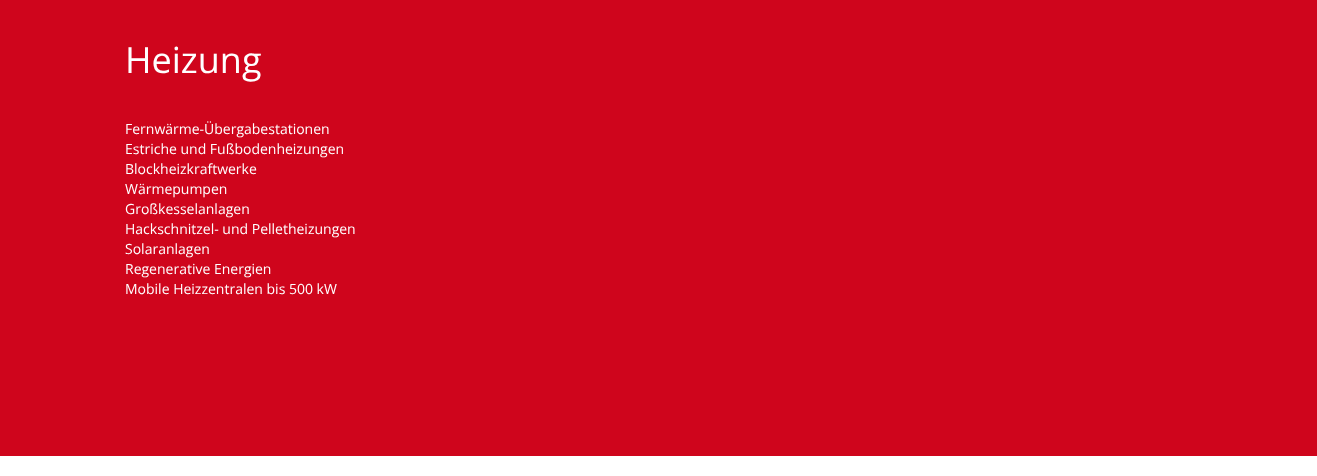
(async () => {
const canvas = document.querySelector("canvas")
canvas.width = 1317
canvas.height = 476
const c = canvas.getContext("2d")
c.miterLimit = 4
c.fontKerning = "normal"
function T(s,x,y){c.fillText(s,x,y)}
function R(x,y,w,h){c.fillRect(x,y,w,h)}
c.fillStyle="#fff"
R(0,0,1317,476)
c.fillStyle="#cf051c"
R(0,0,1317,456)
c.font="36px Open Sans"
c.fillStyle="#fff"
T("Heizung",125,73)
c.font="14px Open Sans"
T("Fernwärme-Übergabestationen",125,134)
T("Estriche und Fußbodenheizungen",125,154)
T("Blockheizkraftwerke",125,174)
T("Wärmepumpen",125,194)
T("Großkesselanlagen",125,214)
T("Hackschnitzel- und Pelletheizungen",125,234)
T("Solaranlagen",125,254)
T("Regenerative Energien",125,274)
T("Mobile Heizzentralen bis 500 kW",125,294)
})()
